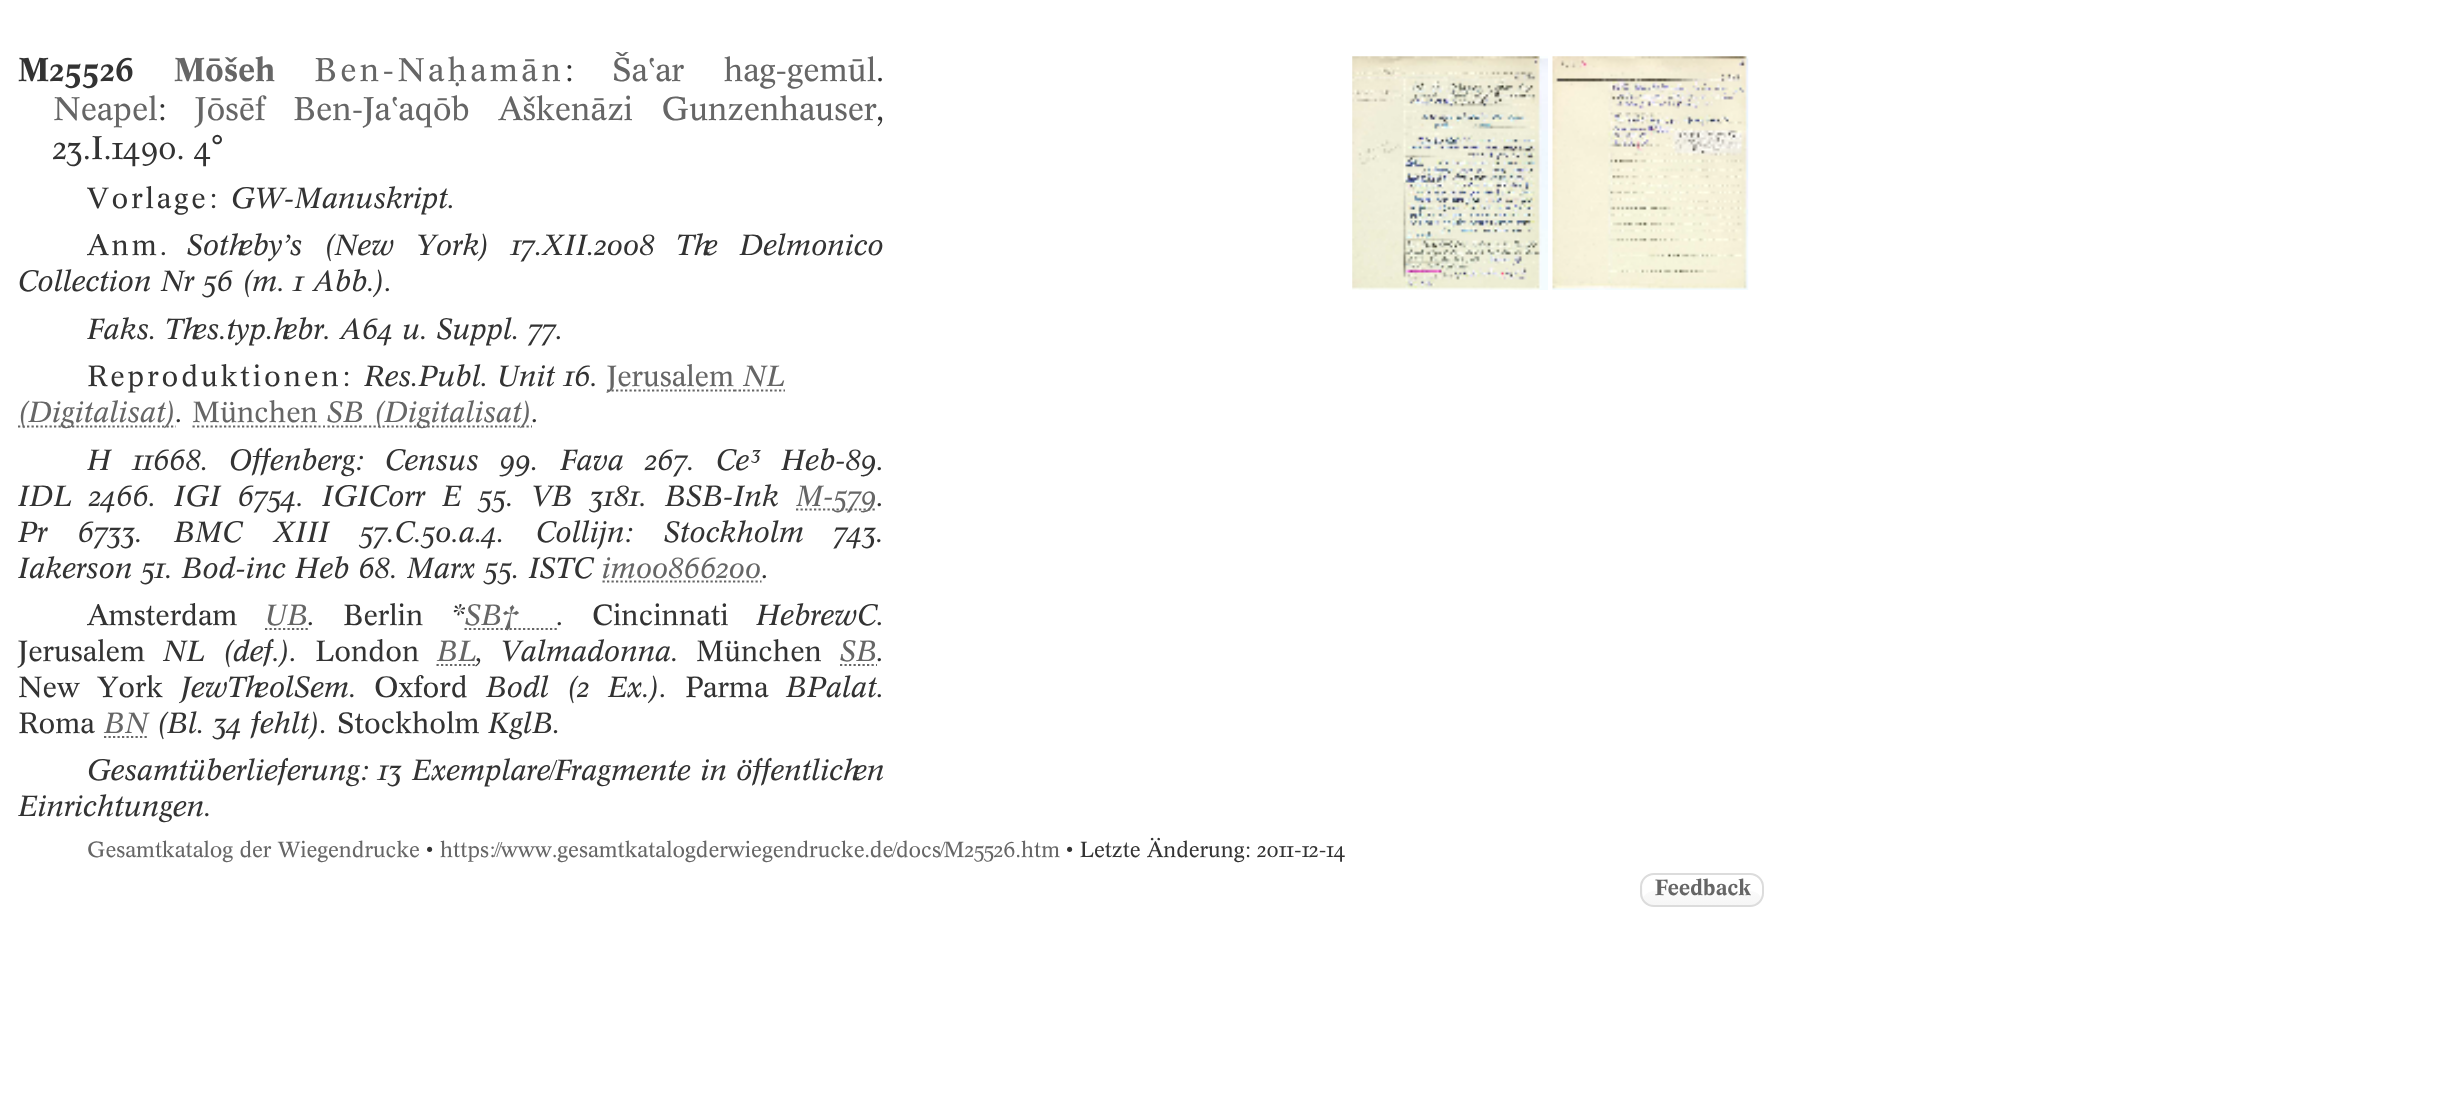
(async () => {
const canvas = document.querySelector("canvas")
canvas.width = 2456
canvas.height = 1100
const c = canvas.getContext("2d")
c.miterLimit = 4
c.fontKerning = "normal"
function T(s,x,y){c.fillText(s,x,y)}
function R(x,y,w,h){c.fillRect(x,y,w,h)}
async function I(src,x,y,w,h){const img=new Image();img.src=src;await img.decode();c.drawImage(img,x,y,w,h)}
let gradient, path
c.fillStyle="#fff"
R(0,0,2456,1100)
c.font="bold 32.4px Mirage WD"
c.fillStyle="#333"
T("M25526",18,81)
c.fillStyle="#666"
T("Mōšeh",174,81)
c.letterSpacing="3.25px"
c.font="32.4px Mirage WD"
T("Ben-Naḥamān",314,81)
c.letterSpacing="0px"
c.fillStyle="#333"
T(":",564,81)
c.wordSpacing="30px"
c.fillStyle="#666"
T("Šaʽar hag-gemūl",612,81)
c.wordSpacing="0px"
c.fillStyle="#333"
T(".",876,81)
c.fillStyle="#666"
T("Neapel",53,120)
c.fillStyle="#333"
T(":",157,120)
c.fillStyle="#666"
T("Jōsēf",195,120)
c.wordSpacing="19px"
T("Ben-Jaʽaqōb Aškenāzi Gunzenhauser",293,120)
c.wordSpacing="0px"
c.fillStyle="#333"
T(",",876,120)
T("23.I.1490. 4°",53,159)
c.letterSpacing="2.9px"
c.font="28.8px Mirage WD"
T("Vorlage:",87,208)
c.letterSpacing="0px"
c.font="italic 28.8px Mirage WD"
T("GW-Manuskript.",231,208)
c.letterSpacing="2.9px"
c.font="28.8px Mirage WD"
T("Anm.",87,255)
c.letterSpacing="0px"
c.wordSpacing="12.5px"
c.font="italic 28.8px Mirage WD"
T("Sotheby’s (New York) 17.XII.2008 The Delmonico",187,255)
c.wordSpacing="0px"
T("Collection Nr 56 (m. 1 Abb.).",18,291)
T("Faks. Thes.typ.hebr. A64 u. Suppl. 77.",87,339)
c.letterSpacing="2.9px"
c.font="28.8px Mirage WD"
T("Reproduktionen:",87,386)
c.letterSpacing="0px"
c.font="italic 28.8px Mirage WD"
T("Res.Publ. Unit 16.",364,386)
path = new Path2D("M607 390.5h127")
c.strokeStyle="#666"
c.lineWidth=2.2
c.setLineDash([2.25,2.25])
c.stroke(path)
c.font="28.8px Mirage WD"
c.fillStyle="#666"
T("Jerusalem",607,386)
path = new Path2D("M734 390.5h2.5m2 0h2.5")
c.setLineDash([])
c.stroke(path)
c.font="italic 28.8px Mirage WD"
T("NL",743,386)
path = new Path2D("M743 390.5h42")
c.setLineDash([2.25,2.25])
c.stroke(path)
path = new Path2D("M18 426.5h158")
c.stroke(path)
T("(Digitalisat)",18,422)
c.fillStyle="#333"
T(".",176,422)
c.font="28.8px Mirage WD"
c.fillStyle="#666"
T("München",192,422)
path = new Path2D("M192.5 426.5h126")
c.stroke(path)
path = new Path2D("M318.5 426.5h2m2.5 0h2")
c.setLineDash([])
c.stroke(path)
c.font="italic 28.8px Mirage WD"
T("SB",327,422)
path = new Path2D("M327.5 426.5h37")
c.setLineDash([2.25,2.25])
c.stroke(path)
path = new Path2D("M364.5 426.5h167.5")
c.stroke(path)
T("(Digitalisat)",374,422)
c.fillStyle="#333"
T(".",532,422)
T("H",87,470)
T("11668.",133,470)
c.wordSpacing="12px"
T("Offenberg: Census",229,470)
c.wordSpacing="0px"
T("99.",500,470)
T("Fava",560,470)
T("267.",645,470)
T("Ce³",716,470)
T("Heb-89.",781,470)
T("IDL",18,506)
T("2466.",89,506)
T("IGI",174,506)
T("6754.",238,506)
T("IGICorr",322,506)
c.wordSpacing="8px"
T("E 55.",442,506)
c.wordSpacing="0px"
T("VB",532,506)
T("3181.",590,506)
T("BSB-Ink",665,506)
path = new Path2D("M796 509.5h81")
c.stroke(path)
c.fillStyle="#666"
T("M-579",796,506)
c.fillStyle="#333"
T(".",877,506)
T("Pr",18,542)
T("6733.",78,542)
c.wordSpacing="22px"
T("BMC XIII",174,542)
c.wordSpacing="0px"
T("57.C.50.a.4.",360,542)
c.wordSpacing="22px"
T("Collijn: Stockholm",536,542)
c.wordSpacing="0px"
T("743.",834,542)
T("Iakerson 51. Bod-inc Heb 68. Marx 55. ISTC",18,578)
c.fillStyle="#666"
T("im00866200",602,578)
path = new Path2D("M602.5 581.5h159")
c.stroke(path)
c.fillStyle="#333"
T(".",762,578)
c.font="28.8px Mirage WD"
T("Amsterdam",87,625)
c.font="italic 28.8px Mirage WD"
c.fillStyle="#666"
T("UB",265,625)
path = new Path2D("M265 629h43.5")
c.stroke(path)
c.fillStyle="#333"
T(".",308,625)
c.font="28.8px Mirage WD"
T("Berlin",343,625)
c.font="italic 28.8px Mirage WD"
T("*",451,625)
path = new Path2D("M464.5 629h92.5")
c.stroke(path)
c.fillStyle="#666"
T("SB†",465,625)
c.fillStyle="#333"
T(".",557,625)
c.font="28.8px Mirage WD"
T("Cincinnati",592,625)
c.font="italic 28.8px Mirage WD"
T("HebrewC.",756,625)
c.font="28.8px Mirage WD"
T("Jerusalem",18,661)
c.wordSpacing="9px"
c.font="italic 28.8px Mirage WD"
T("NL (def.).",163,661)
c.wordSpacing="0px"
c.font="28.8px Mirage WD"
T("London",315,661)
c.font="italic 28.8px Mirage WD"
c.fillStyle="#666"
T("BL",437,661)
path = new Path2D("M436.5 665h39.5")
c.stroke(path)
c.wordSpacing="9px"
c.fillStyle="#333"
T(", Valmadonna.",476,661)
c.wordSpacing="0px"
c.font="28.8px Mirage WD"
T("München",696,661)
c.font="italic 28.8px Mirage WD"
c.fillStyle="#666"
T("SB",840,661)
path = new Path2D("M840 665h37")
c.stroke(path)
c.fillStyle="#333"
T(".",877,661)
c.wordSpacing="9px"
c.font="28.8px Mirage WD"
T("New York",18,697)
c.wordSpacing="0px"
c.font="italic 28.8px Mirage WD"
T("JewTheolSem.",181,697)
c.font="28.8px Mirage WD"
T("Oxford",374,697)
c.wordSpacing="9px"
c.font="italic 28.8px Mirage WD"
T("Bodl (2 Ex.).",486,697)
c.wordSpacing="0px"
c.font="28.8px Mirage WD"
T("Parma",685,697)
c.font="italic 28.8px Mirage WD"
T("BPalat.",786,697)
c.font="28.8px Mirage WD"
T("Roma",18,733)
c.font="italic 28.8px Mirage WD"
c.fillStyle="#666"
T("BN",104,733)
path = new Path2D("M104 737h44")
c.stroke(path)
c.fillStyle="#333"
T("(Bl. 34 fehlt).",157,733)
c.font="28.8px Mirage WD"
T("Stockholm",337,733)
c.font="italic 28.8px Mirage WD"
T("KglB.",488,733)
c.wordSpacing="0.5px"
T("Gesamtüberlieferung: 13 Exemplare/Fragmente in öffentlichen",87,780)
c.wordSpacing="0px"
T("Einrichtungen.",18,816)
await I("1.png",1352,56,196,234)
await I("2.png",1552,56,197,234)
c.font="21.6px Mirage WD"
c.fillStyle="#666"
T("Gesamtkatalog der Wiegendrucke",87,857)
c.fillStyle="#333"
T("•",426,857)
c.fillStyle="#666"
T("https://www.gesamtkatalogderwiegendrucke.de/docs/M25526.htm",440,857)
c.fillStyle="#333"
T("• Letzte Änderung: 2011-12-14",1066,857)
c.save()
c.beginPath()
c.roundRect(1640,873,124,34,14)
c.clip()
gradient = c.createLinearGradient(1702,875,1702,905)
gradient.addColorStop(.05,"#fff")
gradient.addColorStop(1,"#f6f6f6")
c.fillStyle = gradient
R(1640,875,124,30)
c.restore()
c.fillStyle="#fff"
path = new Path2D("M1654 891h96c5 0 10 3 11 7c2-3 1-7 1-10c0-16-16-13-27-13h-65c-11 0-27-3-27 13v9c3-4 7-6 11-6z")
c.fill(path)
c.beginPath()
c.roundRect(1641,874,122,32,13)
c.strokeStyle="#dcdcdc"
c.lineWidth=2
c.setLineDash([])
c.stroke()
c.font="bold 21.6px Mirage WD"
c.fillStyle="#666"
T("Feedback",1655,895)
})()
